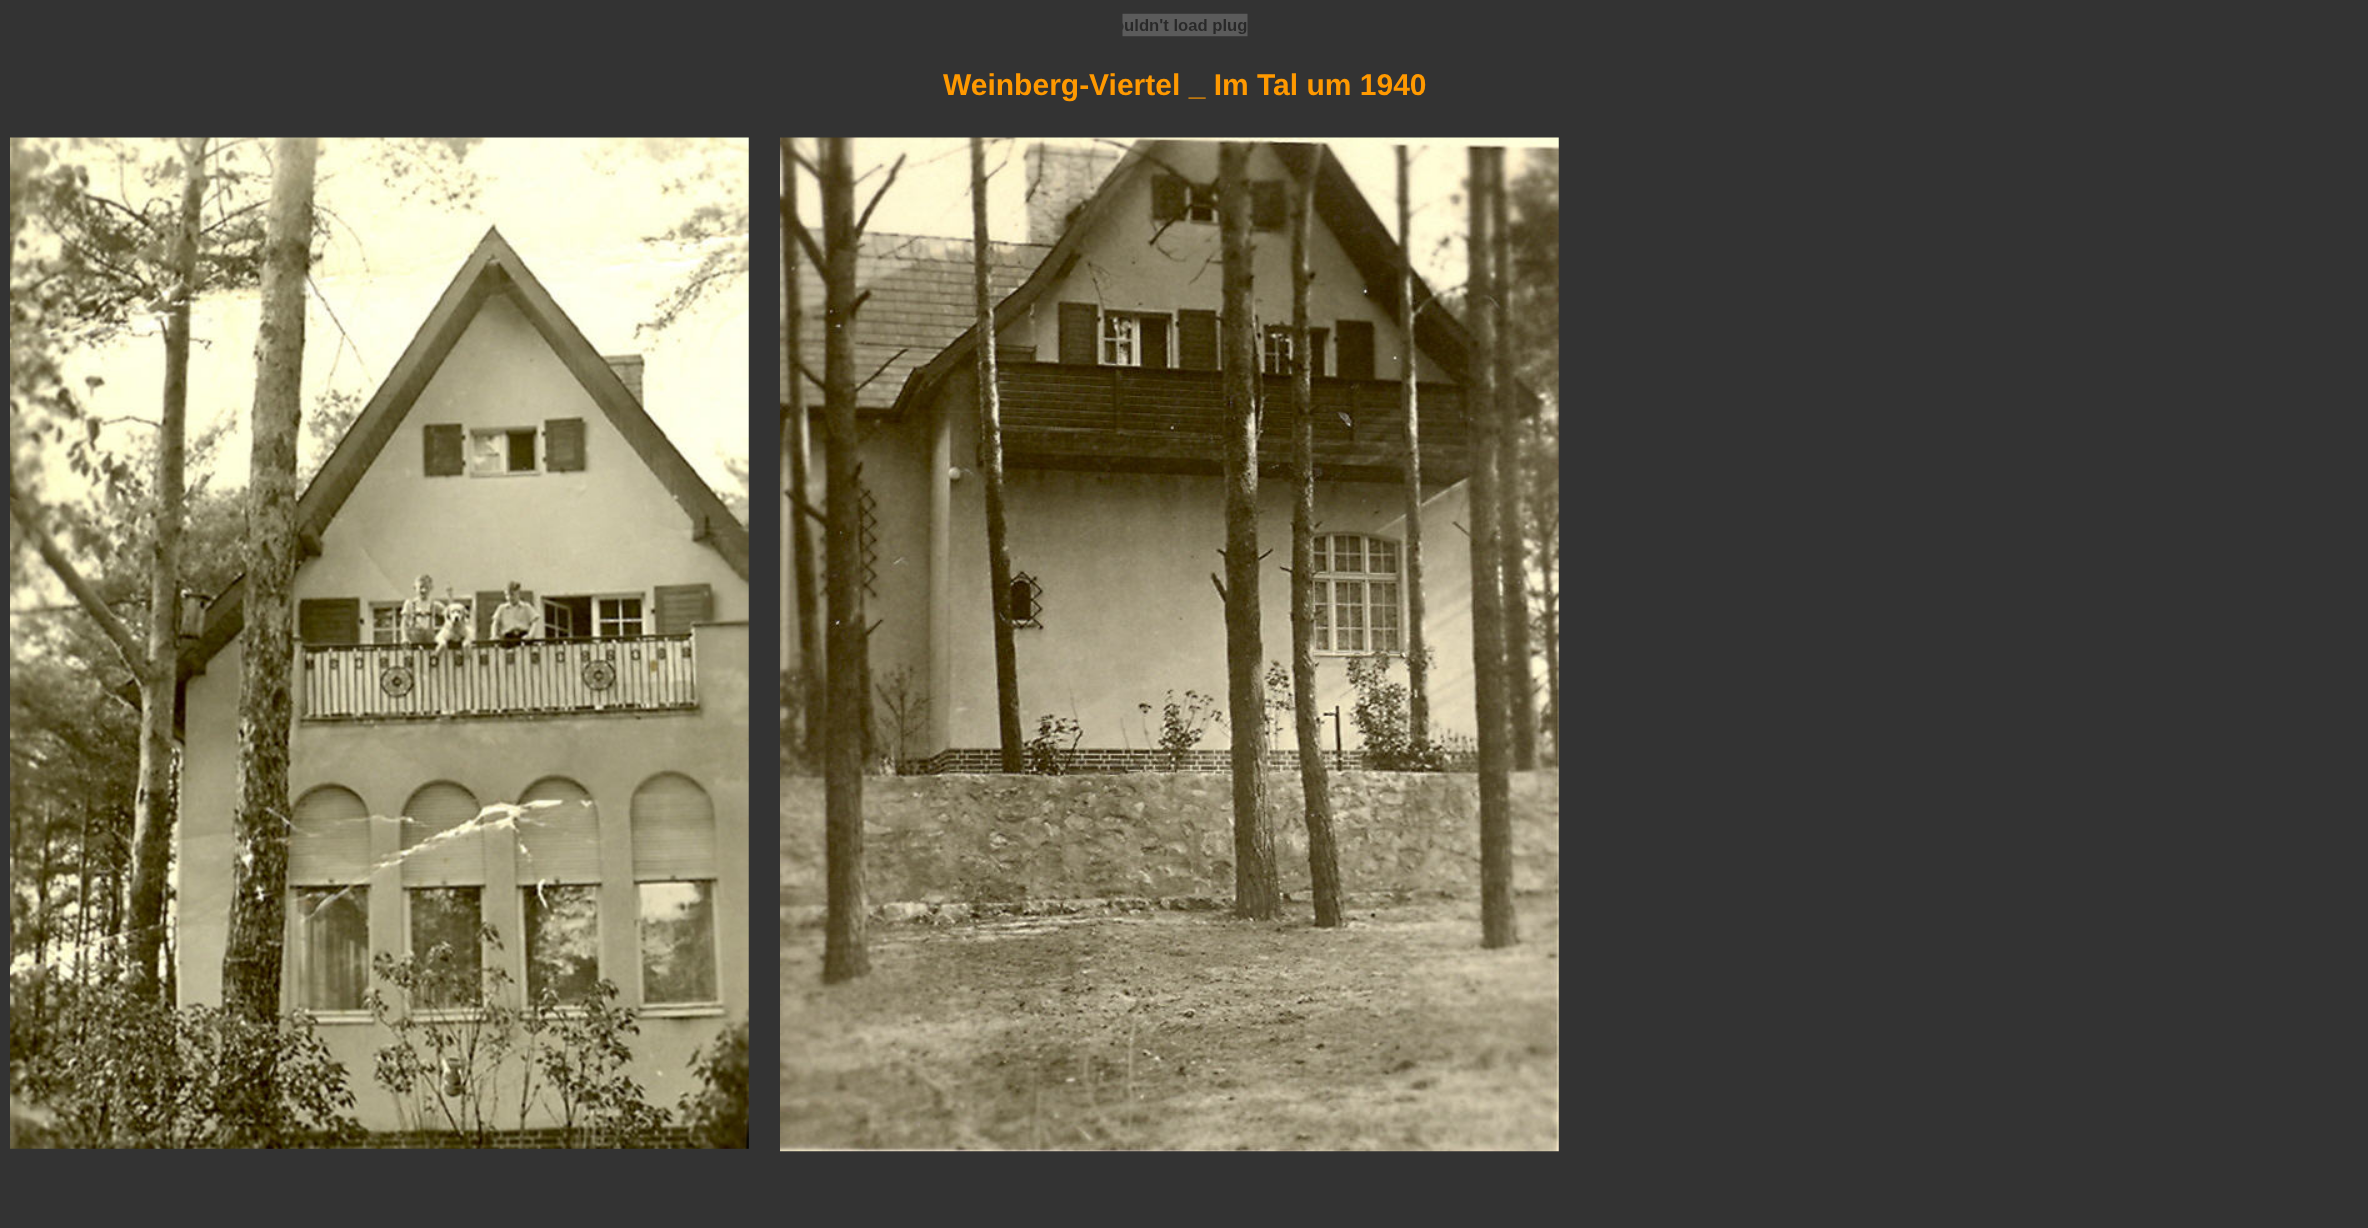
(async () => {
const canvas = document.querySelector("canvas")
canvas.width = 2368
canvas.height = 1228
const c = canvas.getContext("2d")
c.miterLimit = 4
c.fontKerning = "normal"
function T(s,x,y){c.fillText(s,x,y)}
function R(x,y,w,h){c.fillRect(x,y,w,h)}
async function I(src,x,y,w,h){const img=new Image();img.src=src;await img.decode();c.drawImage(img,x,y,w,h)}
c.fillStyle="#333"
R(0,0,2368,1228)
await I("1.png",1122,13,126,24)
c.font="bold 30px Liberation Sans"
c.fillStyle="#f90"
T("Weinberg-Viertel _ Im Tal um 1940",943,95)
await I("2.png",10,137,739,1012)
await I("3.png",780,137,779,1015)
})()
